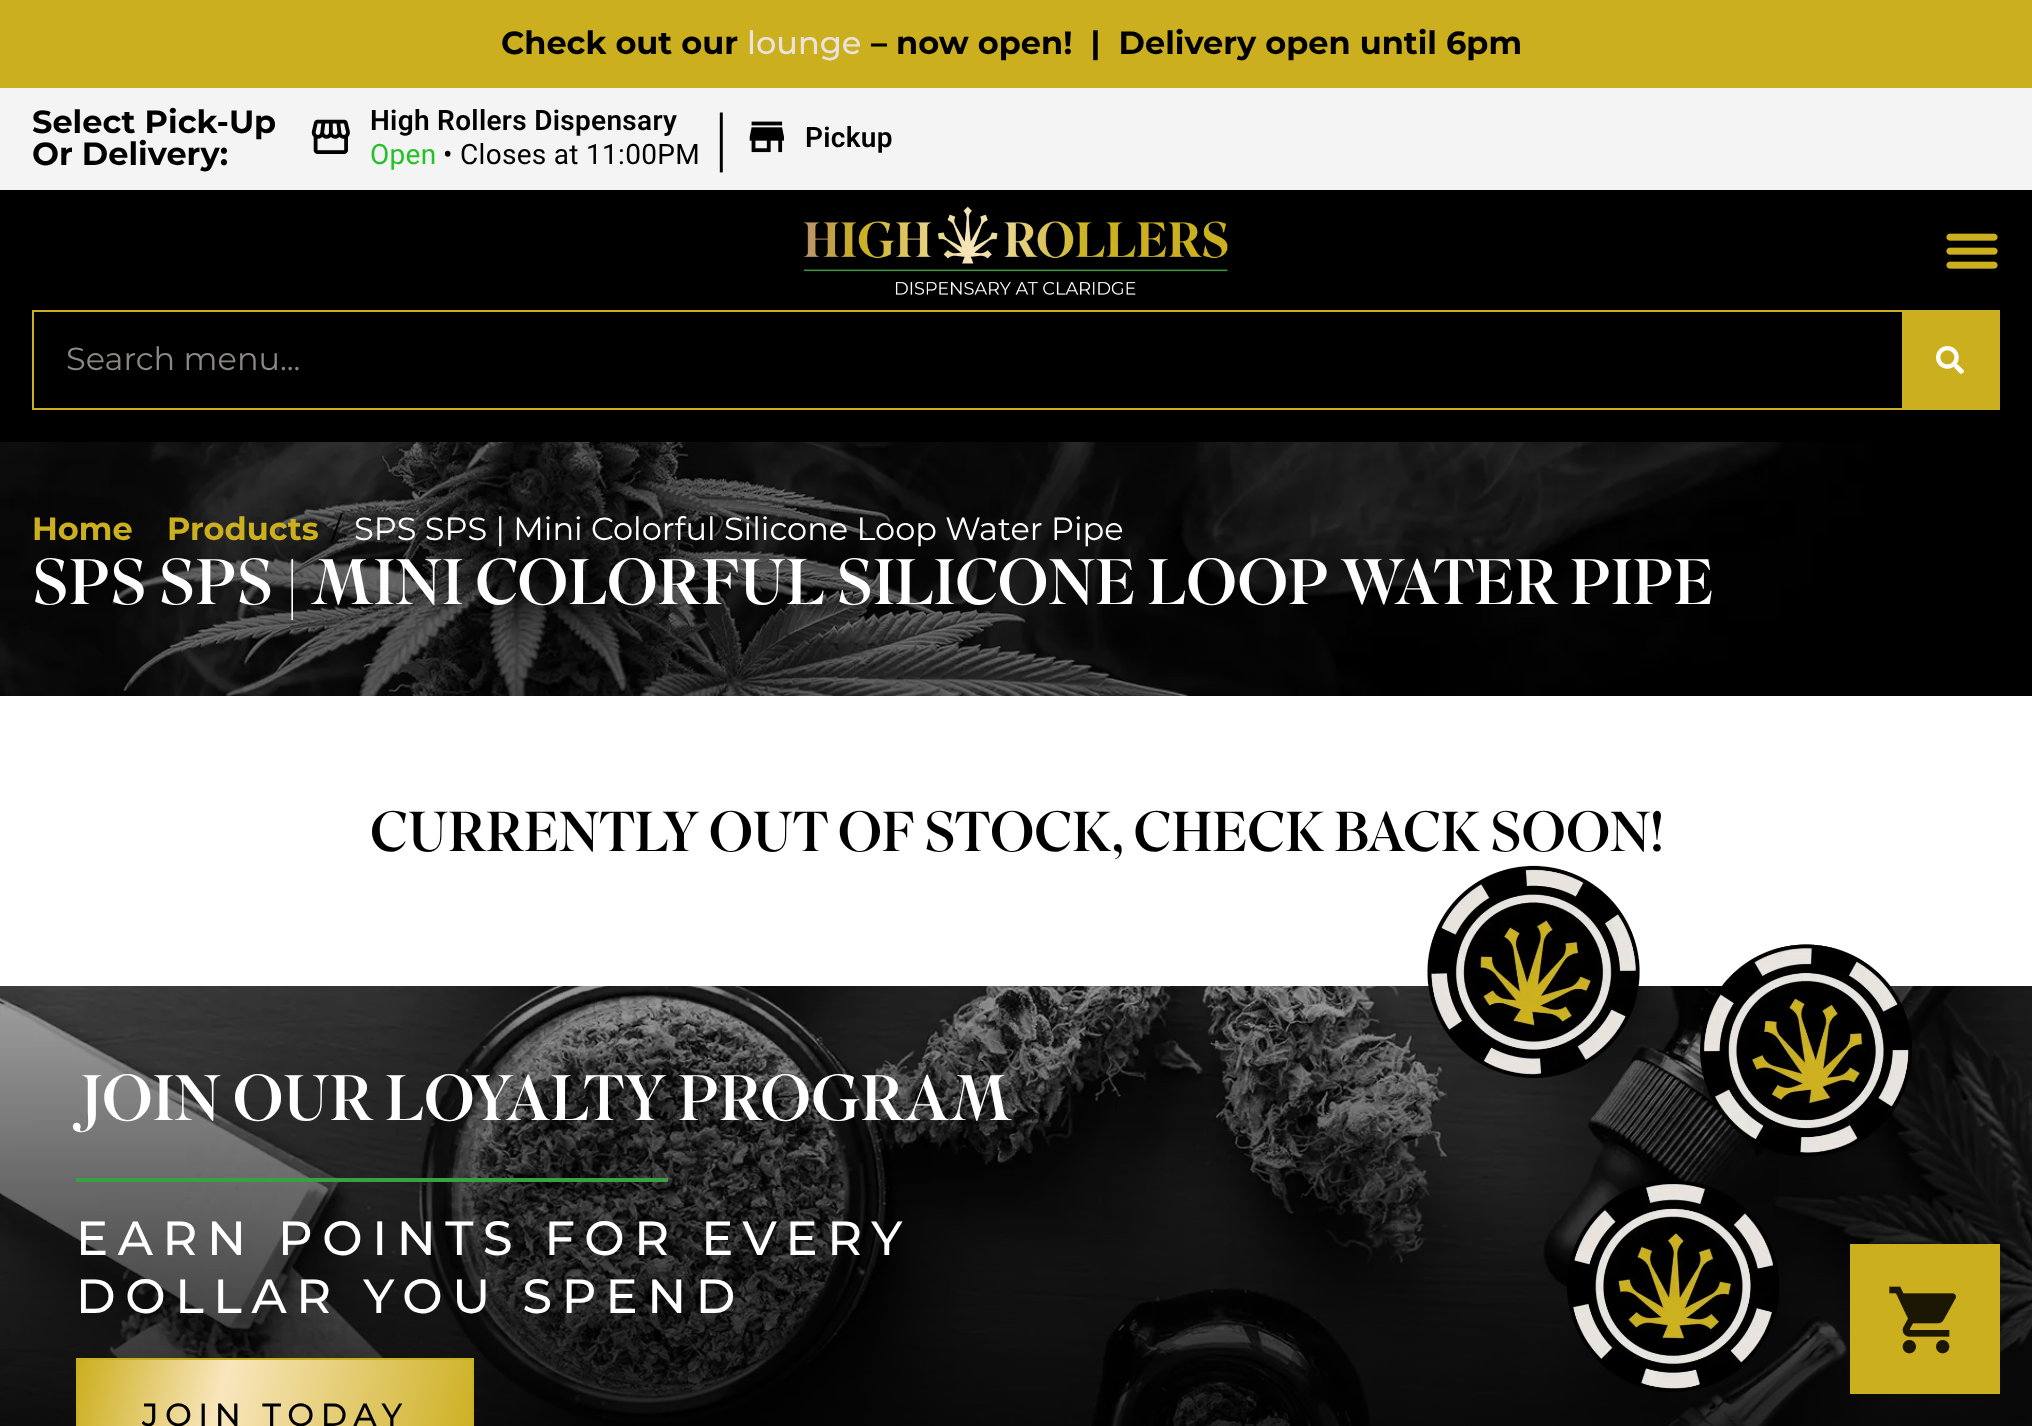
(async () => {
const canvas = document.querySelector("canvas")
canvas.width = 2032
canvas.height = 1426
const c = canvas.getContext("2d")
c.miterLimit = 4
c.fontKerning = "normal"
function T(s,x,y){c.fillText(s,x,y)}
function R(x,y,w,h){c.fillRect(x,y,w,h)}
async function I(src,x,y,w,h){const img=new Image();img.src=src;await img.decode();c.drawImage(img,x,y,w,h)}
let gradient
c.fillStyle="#fff"
R(0,0,2032,1426)
c.fillStyle="#ccaf1f"
R(0,0,2032,88)
c.font="bold 32px Montserrat"
c.fillStyle="#000"
T("Check out our",501,54)
c.font="500 32px Montserrat"
c.fillStyle="#e8e4dd"
T("lounge",747,54)
c.font="bold 32px Montserrat"
c.fillStyle="#000"
T("– now open!  |  Delivery open until 6pm",871,54)
c.fillStyle="#f4f4f4"
R(0,88,2032,102)
c.fillStyle="#000"
T("Select Pick-Up",32,133)
T("Or Delivery:",32,165)
await I("1.png",311,119,39,35)
c.letterSpacing="0.3px"
c.font="600 28px Roboto"
T("High Rollers Dispensary",370,130)
c.font="28px Roboto"
c.fillStyle="#23c22a"
T("Open",370,164)
c.fillStyle="#000"
T("• Closes at 11:00PM",443,164)
c.letterSpacing="0px"
c.font="300 64px Montserrat"
T("|",712,160)
await I("2.png",749,121,35,32)
c.letterSpacing="0.3px"
c.font="600 28px Roboto"
T("Pickup",805,147)
R(0,190,2032,252)
await I("3.png",804,206,424,89)
await I("4.png",1946,233,52,36)
c.strokeStyle="#ccaf1f"
c.lineWidth=2
c.strokeRect(33,311,1966,98)
c.letterSpacing="0px"
c.font="32px Montserrat"
c.fillStyle="#8b8985"
T("Search menu...",66,370)
c.fillStyle="#ccaf1f"
R(1902,312,96,96)
await I("5.png",1936,346,28,28)
await I("6.png",0,442,2032,254)
c.font="bold 32px Montserrat"
T("Home",32,540)
T("Products",167,540)
c.font="32px Montserrat"
c.fillStyle="#000"
T("/",331,540)
c.fillStyle="#fff"
T("SPS SPS | Mini Colorful Silicone Loop Water Pipe",354,540)
c.font="64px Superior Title"
T("SPS SPS | MINI COLORFUL SILICONE LOOP WATER PIPE",32,604)
c.letterSpacing="-0.45px"
c.font="56px Superior Title"
c.fillStyle="#000"
T("CURRENTLY OUT OF STOCK, CHECK BACK SOON!",370,851)
await I("7.png",0,986,2032,440)
c.letterSpacing="0px"
c.font="64px Superior Title"
c.fillStyle="#fff"
T("JOIN OUR LOYALTY PROGRAM",76,1120)
c.fillStyle="#39a142"
R(76,1178,592,4)
c.letterSpacing="9.6px"
c.font="500 48px Montserrat"
c.fillStyle="#fff"
T("EARN POINTS FOR EVERY",76,1255)
T("DOLLAR YOU SPEND",76,1313)
gradient = c.createLinearGradient(76,1370,474,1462)
gradient.addColorStop(0,"#ccaf1f")
gradient.addColorStop(.36,"#f9e6bd")
gradient.addColorStop(1,"#ccaf1f")
c.fillStyle = gradient
R(78,1360,394,66)
c.strokeRect(77,1359,396,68)
c.letterSpacing="6.5px"
c.font="500 32px Montserrat"
c.fillStyle="#000"
T("JOIN TODAY",142,1426)
await I("8.png",1427,865,485,527)
c.fillStyle="#ccaf1f"
R(1850,1244,150,150)
await I("9.png",1889,1286,67,68)
})()
